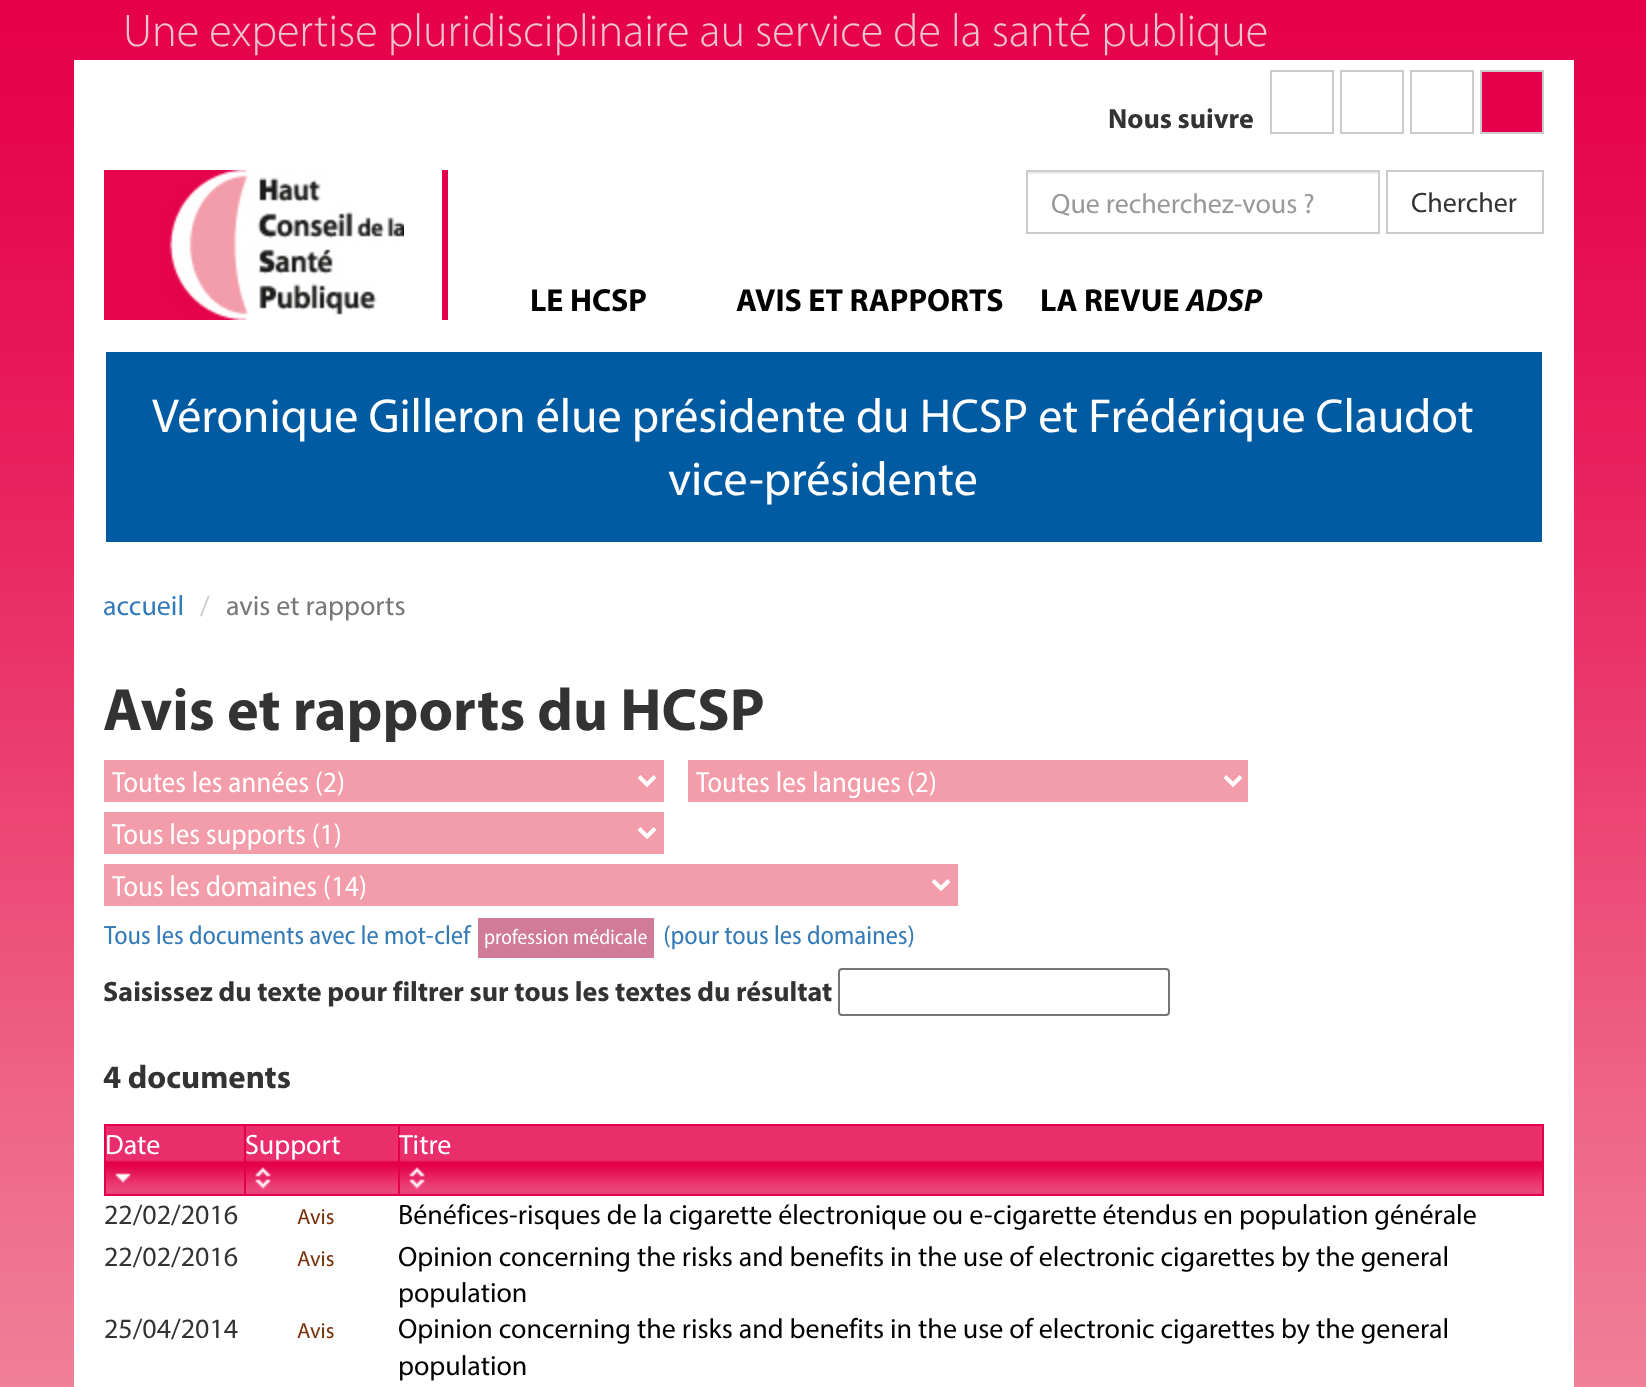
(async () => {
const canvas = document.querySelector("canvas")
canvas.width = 1646
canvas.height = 1387
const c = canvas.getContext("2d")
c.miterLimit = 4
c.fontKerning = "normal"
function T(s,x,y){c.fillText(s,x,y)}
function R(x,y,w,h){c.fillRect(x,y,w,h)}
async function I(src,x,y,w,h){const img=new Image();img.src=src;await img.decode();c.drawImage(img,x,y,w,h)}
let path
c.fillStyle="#fff"
R(0,0,1646,1387)
await I("1.png",0,0,1646,1387)
c.font="300 46.2px Myriad"
c.fillStyle="#ecc5d2"
T("Une expertise pluridisciplinaire au service de la santé publique",123,46)
c.fillStyle="#fff"
R(74,60,1500,1327)
c.font="bold 28px Myriad"
c.fillStyle="#333"
T("Nous suivre",1108,128)
c.strokeStyle="#ccc"
c.lineWidth=2
c.strokeRect(1271,71,62,62)
c.strokeRect(1341,71,62,62)
c.strokeRect(1411,71,62,62)
c.fillStyle="#e5004b"
c.beginPath()
c.rect(1481,71,62,62)
c.fill()
c.stroke()
R(442,170,6,150)
await I("2.png",104,170,300,150)
c.fillStyle="#ececec"
R(1028,172,350,2)
c.strokeRect(1027,171,352,62)
c.font="28px Myriad"
c.fillStyle="#999"
T("Que recherchez-vous ?",1051,213)
c.strokeRect(1387,171,156,62)
c.fillStyle="#333"
T("Chercher",1411,212)
c.font="bold 32px Myriad"
c.fillStyle="#000"
T("LE HCSP",530,311)
T("AVIS ET RAPPORTS",736,311)
T("LA REVUE",1040,311)
c.font="italic bold 32px Myriad"
T("ADSP",1186,311)
c.fillStyle="#005ba2"
R(106,352,1436,190)
c.font="48px Myriad"
c.fillStyle="#fff"
T("Véronique Gilleron élue présidente du HCSP et Frédérique Claudot",152,432)
T("vice-présidente",668,495)
c.font="28px Myriad"
c.fillStyle="#337ab7"
T("accueil",103,615)
c.fillStyle="#ccc"
T("/",200,615)
c.fillStyle="#777"
T("avis et rapports",226,615)
c.font="bold 60px Myriad"
c.fillStyle="#333"
T("Avis et rapports du HCSP",103,730)
c.fillStyle="#f39daa"
R(104,760,560,42)
path = new Path2D("M639 776.5l8 8l8-8")
c.strokeStyle="#fff"
c.lineWidth=4
c.stroke(path)
await I("3.png",112,771,232,25)
R(688,760,560,42)
path = new Path2D("M1225 776.5l8 8l8-8")
c.stroke(path)
await I("4.png",696,771,239,27)
R(104,812,560,42)
path = new Path2D("M639 828.5l8 8l8-8")
c.stroke(path)
await I("5.png",112,823,228,27)
R(104,864,854,42)
path = new Path2D("M933 880.5l8 8l8-8")
c.stroke(path)
await I("6.png",112,875,254,25)
await I("7.png",104,925,368,20)
c.fillStyle="#d17b99"
R(478,918,176,40)
await I("8.png",485,928,162,21)
await I("9.png",664,925,250,25)
c.font="bold 28px Myriad"
c.fillStyle="#333"
T("Saisissez du texte pour filtrer sur tous les textes du résultat",103,1001)
c.beginPath()
c.roundRect(839,969,330,46,3)
c.strokeStyle="#767676"
c.lineWidth=2
c.stroke()
c.font="bold 32.75px Myriad"
T("4 documents",103,1088)
await I("10.png",106,1126,138,68)
c.fillStyle="#e5004b"
R(398,1124,1146,2)
R(1542,1124,2,72)
R(398,1194,1146,2)
R(398,1124,2,72)
R(244,1124,156,2)
R(244,1194,156,2)
R(244,1124,2,72)
R(104,1124,142,2)
R(104,1194,142,2)
R(104,1124,2,72)
c.font="28px Myriad"
c.fillStyle="#fff"
T("Date",105,1154)
await I("11.png",115,1173,16,10)
await I("12.png",246,1126,152,68)
T("Support",245,1154)
await I("13.png",255,1167,16,22)
await I("14.png",400,1126,1142,68)
T("Titre",399,1154)
await I("13.png",409,1167,16,22)
c.fillStyle="#333"
T("22/02/2016",104,1224)
c.font="22px Myriad"
c.fillStyle="#773108"
T("Avis",297,1224)
c.font="28px Myriad"
c.fillStyle="#000"
T("Bénéfices-risques de la cigarette électronique ou e-cigarette étendus en population générale",398,1224)
c.fillStyle="#333"
T("22/02/2016",104,1266)
c.font="22px Myriad"
c.fillStyle="#773108"
T("Avis",297,1266)
c.font="28px Myriad"
c.fillStyle="#000"
T("Opinion concerning the risks and benefits in the use of electronic cigarettes by the general",398,1266)
T("population",398,1302)
c.fillStyle="#333"
T("25/04/2014",104,1338)
c.font="22px Myriad"
c.fillStyle="#773108"
T("Avis",297,1338)
c.font="28px Myriad"
c.fillStyle="#000"
T("Opinion concerning the risks and benefits in the use of electronic cigarettes by the general",398,1338)
T("population",398,1375)
})()
